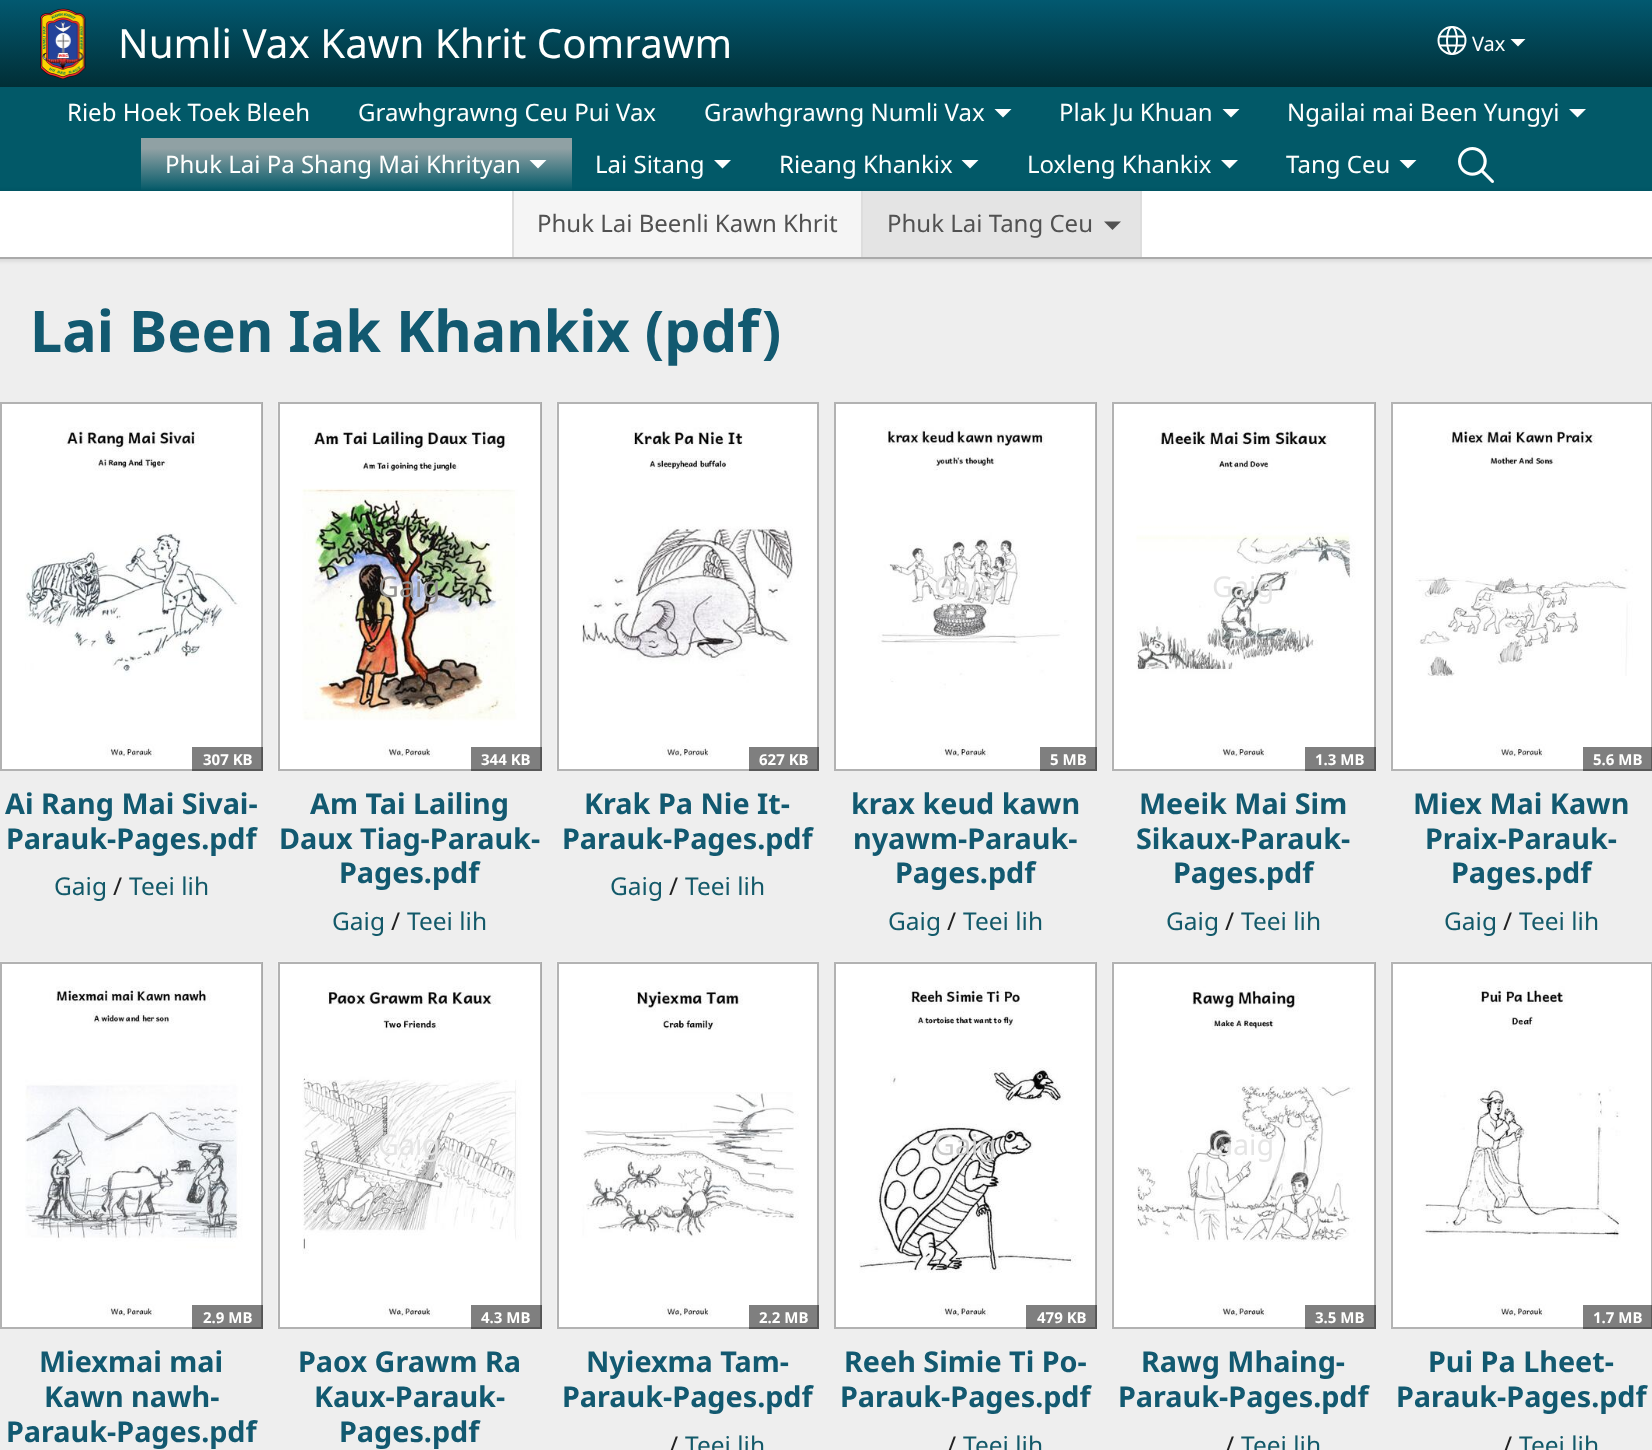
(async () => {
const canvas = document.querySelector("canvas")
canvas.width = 1652
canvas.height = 1450
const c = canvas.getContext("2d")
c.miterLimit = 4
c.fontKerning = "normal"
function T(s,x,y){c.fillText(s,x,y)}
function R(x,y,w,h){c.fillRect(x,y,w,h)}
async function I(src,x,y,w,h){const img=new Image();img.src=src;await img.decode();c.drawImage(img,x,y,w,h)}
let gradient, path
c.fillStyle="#eee"
R(0,0,1652,1450)
gradient = c.createLinearGradient(827,0,827,87)
gradient.addColorStop(0,"#025970")
gradient.addColorStop(1,"#012e36")
c.fillStyle = gradient
R(0,0,1652,87)
await I("1.png",40,8,46,72)
c.font="40.3px Noto Sans"
c.fillStyle="#fffffe"
T("Numli Vax Kawn Khrit Comrawm",118,58)
c.beginPath()
c.arc(1452,40.5,13.5,0,7)
c.strokeStyle="#fffffe"
c.lineWidth=2
c.stroke()
c.beginPath()
c.ellipse(1452,40.5,5,13.5,0,0,7)
c.stroke()
path = new Path2D("M1439 45.5h26m-26-9h26")
c.stroke(path)
c.font="20px Noto Sans"
T("Vax",1472,51)
path = new Path2D("M1510.5 39h15l-7.5 7.5z")
c.fill(path)
c.fillStyle="#025968"
R(0,87,1652,104)
c.font="24px Noto Sans"
c.fillStyle="#fffffe"
T("Rieb Hoek Toek Bleeh",67,121)
T("Grawhgrawng Ceu Pui Vax",358,121)
T("Grawhgrawng Numli Vax",704,121)
c.fillStyle="#feffff"
path = new Path2D("M994.5 109h17l-8.5 8.5z")
c.fill(path)
c.fillStyle="#fffffe"
T("Plak Ju Khuan",1059,121)
c.fillStyle="#feffff"
path = new Path2D("M1222.5 109h17l-8.5 8.5z")
c.fill(path)
c.fillStyle="#fffffe"
T("Ngailai mai Been Yungyi",1287,121)
c.fillStyle="#feffff"
path = new Path2D("M1569 109h17l-8.5 8.5z")
c.fill(path)
gradient = c.createLinearGradient(356,138,356,191)
gradient.addColorStop(.2,"#90a1a4")
gradient.addColorStop(1,"#025968")
c.fillStyle = gradient
R(141,138,431,52)
c.fillStyle="#fffffe"
T("Phuk Lai Pa Shang Mai Khrityan",165,173)
c.fillStyle="#feffff"
path = new Path2D("M529.5 160h17l-8.5 8.5z")
c.fill(path)
c.fillStyle="#0000001a"
c.filter="blur(2px)"
c.beginPath()
c.rect(-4,191,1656,70)
c.fill()
c.filter="none"
c.fillStyle="#fff"
R(0,191,1652,66)
c.fillStyle="#aaa"
R(0,257,1652,2)
c.fillStyle="#f5f5f5"
R(514,191,347,66)
c.fillStyle="#ddd"
R(512,191,2,66)
c.fillStyle="#515151"
T("Phuk Lai Beenli Kawn Khrit",537,232)
c.fillStyle="#e4e4e4"
R(863,191,277,66)
c.fillStyle="#ddd"
R(1140,191,2,66)
R(861,191,2,66)
c.fillStyle="#515151"
T("Phuk Lai Tang Ceu",887,232)
path = new Path2D("M1104 221.5h17l-8.5 8.5z")
c.fill(path)
await I("2.png",1458,147,36,36)
c.fillStyle="#fffffe"
T("Lai Sitang",595,173)
c.fillStyle="#feffff"
path = new Path2D("M714 160h17l-8.5 8.5z")
c.fill(path)
c.fillStyle="#fffffe"
T("Rieang Khankix",779,173)
c.fillStyle="#feffff"
path = new Path2D("M961.5 160h17l-8.5 8.5z")
c.fill(path)
c.fillStyle="#fffffe"
T("Loxleng Khankix",1027,173)
c.fillStyle="#feffff"
path = new Path2D("M1221 160h17l-8.5 8.5z")
c.fill(path)
c.fillStyle="#fffffe"
T("Tang Ceu",1286,173)
c.fillStyle="#feffff"
path = new Path2D("M1399.5 160h17l-8.5 8.5z")
c.fill(path)
c.font="bold 57.6px Noto Sans"
c.fillStyle="#125970"
T("Lai Been Iak Khankix (pdf)",30,352)
await I("3.png",0,402,263,369)
c.strokeStyle="#0000004d"
c.strokeRect(1,403,261,367)
c.fillStyle="#00000080"
R(192,747,71,24)
c.font="bold 15px Noto Sans"
c.fillStyle="#fffffe"
T("307 KB",203,765)
c.font="bold 28.75px Noto Sans"
c.fillStyle="#125970"
T("Ai Rang Mai Sivai-",5,814)
T("Parauk-Pages.pdf",6,849)
c.font="24.5px Noto Sans"
c.fillStyle="#125969"
T("Gaig",54,895)
c.fillStyle="#222"
T("/",113,895)
c.fillStyle="#125969"
T("Teei lih",129,895)
await I("4.png",277,402,265,369)
c.strokeRect(279,403,262,367)
c.font="28.75px Noto Sans"
c.fillStyle="#939190"
T("Gaig",378,597)
c.fillStyle="#00000080"
R(471,747,71,24)
c.font="bold 15px Noto Sans"
c.fillStyle="#fffffe"
T("344 KB",481,765)
c.font="bold 28.75px Noto Sans"
c.fillStyle="#125970"
T("Am Tai Lailing",310,814)
T("Daux Tiag-Parauk-",279,849)
T("Pages.pdf",339,883)
c.font="24.5px Noto Sans"
c.fillStyle="#125969"
T("Gaig",332,930)
c.fillStyle="#222"
T("/",391,930)
c.fillStyle="#125969"
T("Teei lih",407,930)
await I("5.png",556,402,261,369)
c.strokeStyle="#b3b3b3"
c.strokeRect(558,403,260,367)
c.fillStyle="#00000080"
R(749,747,70,24)
c.font="bold 15px Noto Sans"
c.fillStyle="#fffffe"
T("627 KB",759,765)
c.font="bold 28.75px Noto Sans"
c.fillStyle="#125970"
T("Krak Pa Nie It-",584,814)
T("Parauk-Pages.pdf",562,849)
c.font="24.5px Noto Sans"
c.fillStyle="#125969"
T("Gaig",610,895)
c.fillStyle="#222"
T("/",669,895)
c.fillStyle="#125969"
T("Teei lih",685,895)
await I("6.png",834,402,263,369)
c.strokeStyle="#0000004d"
c.strokeRect(835,403,261,367)
c.font="28.75px Noto Sans"
c.fillStyle="#e5e5e5"
T("Gaig",934,597)
c.fillStyle="#00000080"
R(1040,747,57,24)
c.font="bold 15px Noto Sans"
c.fillStyle="#fffffe"
T("5 MB",1050,765)
c.font="bold 28.75px Noto Sans"
c.fillStyle="#125970"
T("krax keud kawn",851,814)
T("nyawm-Parauk-",853,849)
T("Pages.pdf",895,883)
c.font="24.5px Noto Sans"
c.fillStyle="#125969"
T("Gaig",888,930)
c.fillStyle="#222"
T("/",947,930)
c.fillStyle="#125969"
T("Teei lih",963,930)
await I("7.png",1111,402,265,369)
c.strokeRect(1113,403,262,367)
c.font="28.75px Noto Sans"
c.fillStyle="#e5e5e5"
T("Gaig",1212,597)
c.fillStyle="#00000080"
R(1305,747,71,24)
c.font="bold 15px Noto Sans"
c.fillStyle="#fffffe"
T("1.3 MB",1315,765)
c.font="bold 28.75px Noto Sans"
c.fillStyle="#125970"
T("Meeik Mai Sim",1139,814)
T("Sikaux-Parauk-",1136,849)
T("Pages.pdf",1173,883)
c.font="24.5px Noto Sans"
c.fillStyle="#125969"
T("Gaig",1166,930)
c.fillStyle="#222"
T("/",1225,930)
c.fillStyle="#125969"
T("Teei lih",1241,930)
await I("8.png",1390,402,261,369)
c.strokeStyle="#b3b3b3"
c.strokeRect(1392,403,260,367)
c.fillStyle="#00000080"
R(1583,747,69,24)
c.font="bold 15px Noto Sans"
c.fillStyle="#fffffe"
T("5.6 MB",1593,765)
c.font="bold 28.75px Noto Sans"
c.fillStyle="#125970"
T("Miex Mai Kawn",1413,814)
T("Praix-Parauk-",1425,849)
T("Pages.pdf",1451,883)
c.font="24.5px Noto Sans"
c.fillStyle="#125969"
T("Gaig",1444,930)
c.fillStyle="#222"
T("/",1503,930)
c.fillStyle="#125969"
T("Teei lih",1519,930)
await I("9.png",0,961,263,368)
c.strokeStyle="#0000004d"
c.strokeRect(1,963,261,365)
c.fillStyle="#00000080"
R(192,1305,71,24)
c.font="bold 15px Noto Sans"
c.fillStyle="#fffffe"
T("2.9 MB",203,1323)
c.font="bold 28.75px Noto Sans"
c.fillStyle="#125970"
T("Miexmai mai",39,1372)
T("Kawn nawh-",44,1407)
T("Parauk-Pages.pdf",6,1442)
await I("10.png",277,961,265,368)
c.strokeRect(279,963,262,365)
c.font="28.75px Noto Sans"
c.fillStyle="#e5e5e5"
T("Gaig",378,1155)
c.fillStyle="#00000080"
R(471,1305,71,24)
c.font="bold 15px Noto Sans"
c.fillStyle="#fffffe"
T("4.3 MB",481,1323)
c.font="bold 28.75px Noto Sans"
c.fillStyle="#125970"
T("Paox Grawm Ra",298,1372)
T("Kaux-Parauk-",314,1407)
T("Pages.pdf",339,1442)
await I("11.png",556,961,263,368)
c.strokeStyle="#b3b3b3"
c.strokeRect(558,963,260,365)
c.fillStyle="#00000080"
R(749,1305,70,24)
c.font="bold 15px Noto Sans"
c.fillStyle="#fffffe"
T("2.2 MB",759,1323)
c.font="bold 28.75px Noto Sans"
c.fillStyle="#125970"
T("Nyiexma Tam-",586,1372)
T("Parauk-Pages.pdf",562,1407)
c.font="24.5px Noto Sans"
c.fillStyle="#222"
T("/",669,1454)
c.fillStyle="#125969"
T("Teei lih",685,1454)
await I("12.png",834,961,263,368)
c.strokeStyle="#0000004d"
c.strokeRect(835,963,261,365)
c.font="28.75px Noto Sans"
c.fillStyle="#cbcbcb"
T("Gaig",934,1155)
c.fillStyle="#00000080"
R(1026,1305,71,24)
c.font="bold 15px Noto Sans"
c.fillStyle="#fffffe"
T("479 KB",1037,1323)
c.font="bold 28.75px Noto Sans"
c.fillStyle="#125970"
T("Reeh Simie Ti Po-",844,1372)
T("Parauk-Pages.pdf",840,1407)
c.font="24.5px Noto Sans"
c.fillStyle="#222"
T("/",947,1454)
c.fillStyle="#125969"
T("Teei lih",963,1454)
await I("13.png",1111,961,265,368)
c.strokeRect(1113,963,262,365)
c.font="28.75px Noto Sans"
c.fillStyle="#e5e5e5"
T("Gaig",1212,1155)
c.fillStyle="#00000080"
R(1305,1305,71,24)
c.font="bold 15px Noto Sans"
c.fillStyle="#fffffe"
T("3.5 MB",1315,1323)
c.font="bold 28.75px Noto Sans"
c.fillStyle="#125970"
T("Rawg Mhaing-",1141,1372)
T("Parauk-Pages.pdf",1118,1407)
c.font="24.5px Noto Sans"
c.fillStyle="#222"
T("/",1225,1454)
c.fillStyle="#125969"
T("Teei lih",1241,1454)
await I("14.png",1390,961,262,368)
c.strokeStyle="#b3b3b3"
c.strokeRect(1392,963,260,365)
c.fillStyle="#00000080"
R(1583,1305,69,24)
c.font="bold 15px Noto Sans"
c.fillStyle="#fffffe"
T("1.7 MB",1593,1323)
c.font="bold 28.75px Noto Sans"
c.fillStyle="#125970"
T("Pui Pa Lheet-",1428,1372)
T("Parauk-Pages.pdf",1396,1407)
c.font="24.5px Noto Sans"
c.fillStyle="#222"
T("/",1503,1454)
c.fillStyle="#125969"
T("Teei lih",1519,1454)
})()
